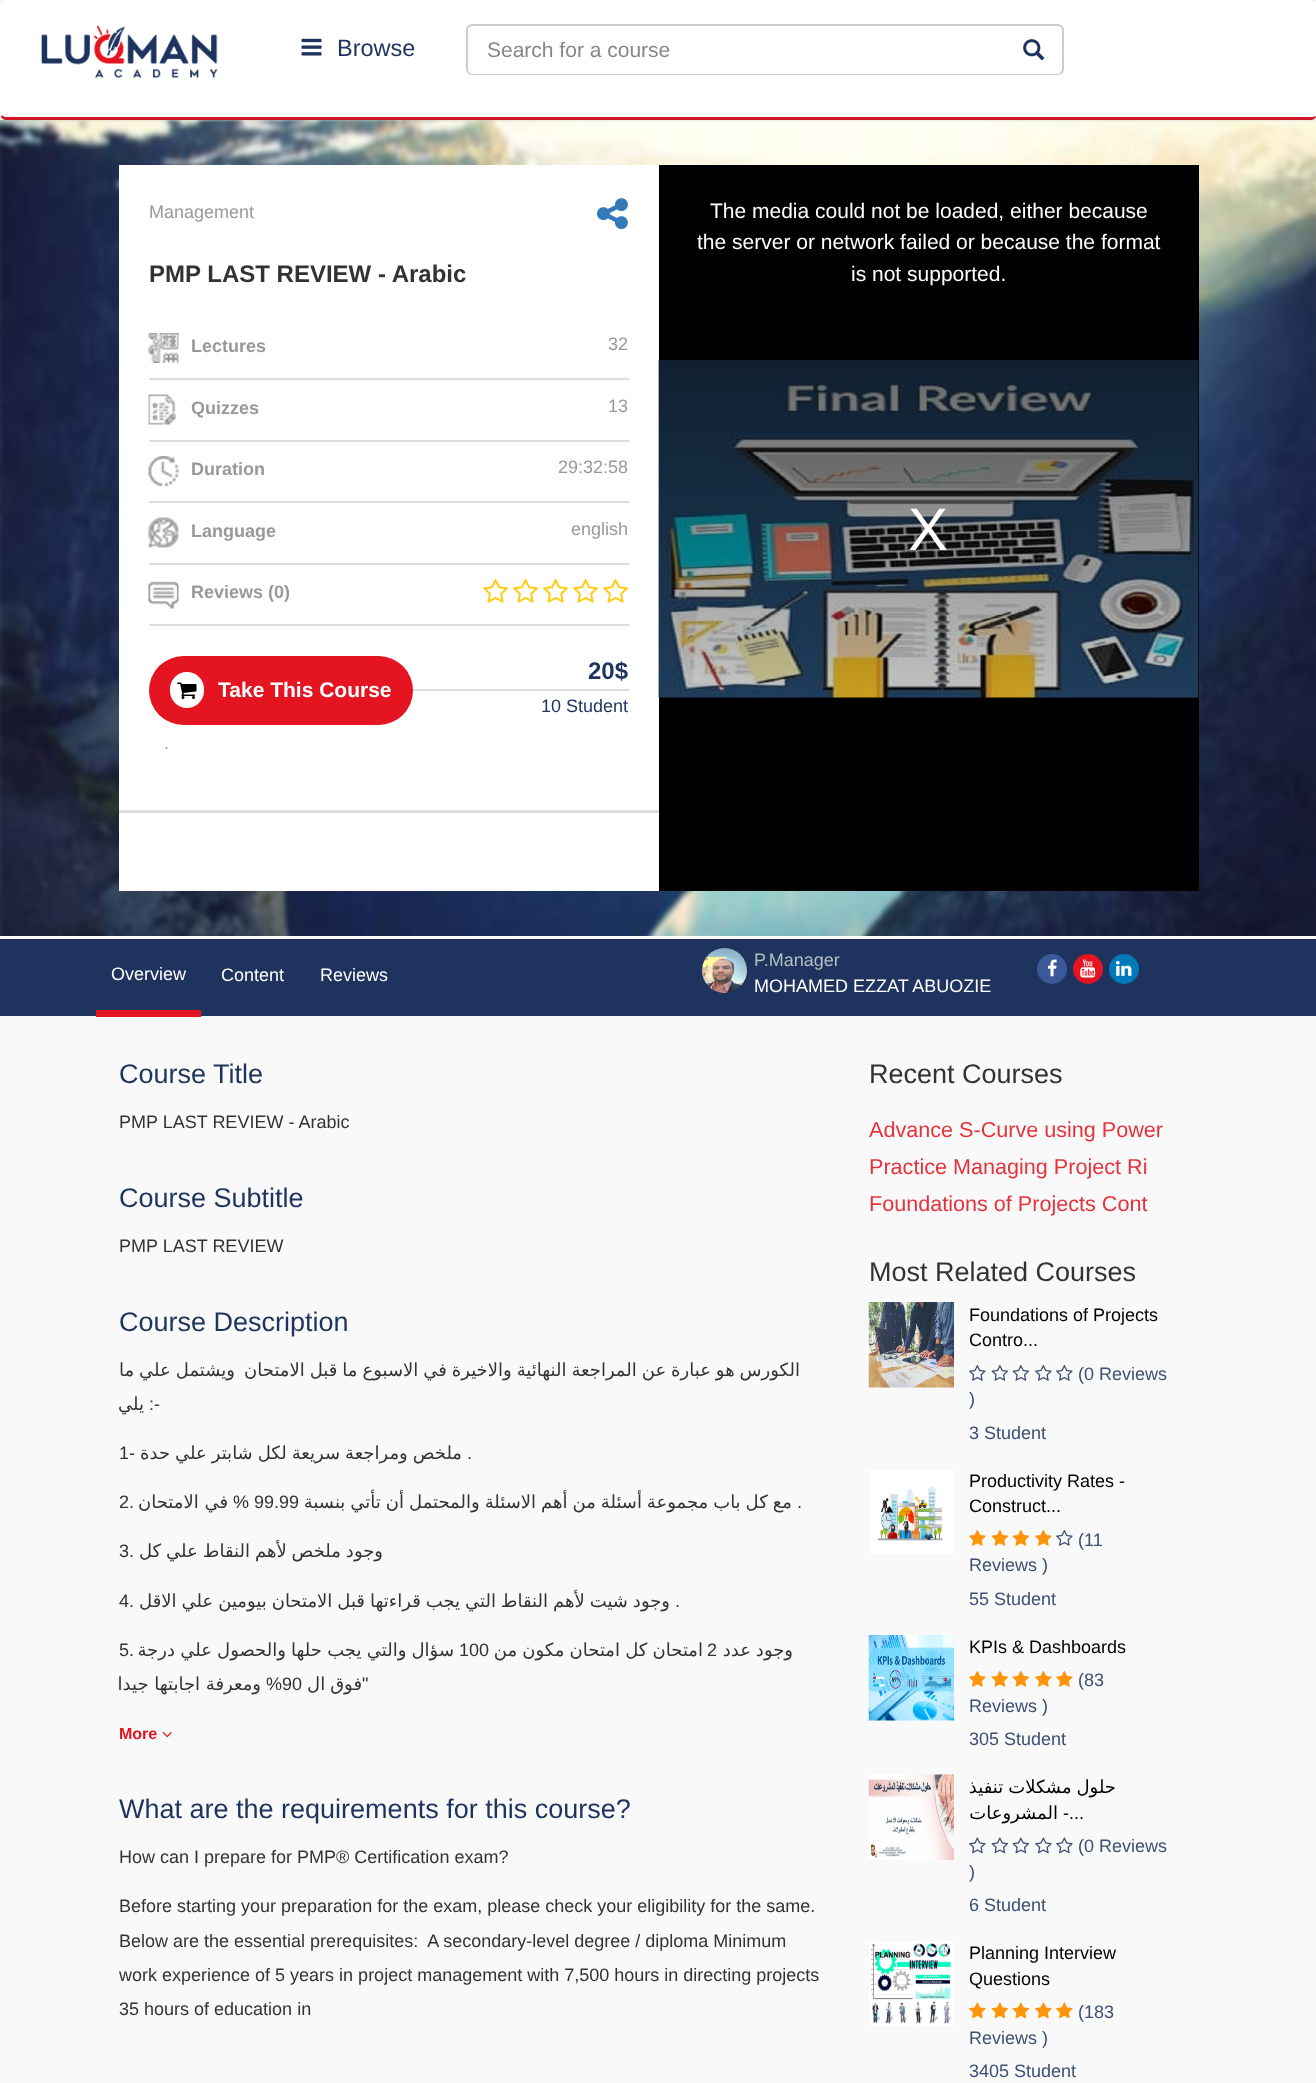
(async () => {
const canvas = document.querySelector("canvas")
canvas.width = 1316
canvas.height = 2083
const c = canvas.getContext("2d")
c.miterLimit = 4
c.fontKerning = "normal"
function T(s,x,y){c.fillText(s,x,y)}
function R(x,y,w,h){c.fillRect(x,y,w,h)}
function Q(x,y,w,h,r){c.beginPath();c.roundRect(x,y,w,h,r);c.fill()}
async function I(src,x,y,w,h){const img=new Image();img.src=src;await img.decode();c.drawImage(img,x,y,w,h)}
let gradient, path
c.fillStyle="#f9f9f9"
R(0,0,1316,2083)
c.fillStyle="#fff"
R(0,0,1316,120)
await I("4.png",0,120,1316,816)
c.fillStyle="#ccc"
c.filter="blur(1.5px)"
c.beginPath()
c.roundRect(0,0,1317,120,6)
c.fill()
c.filter="none"
c.fillStyle="#fff"
Q(0,0,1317,120,6)
c.fillStyle="#d11726"
path = new Path2D("M6 120h1305c2 0 4-1 5-3l-1-1c-1 1-3 1-4 1h-1305c-2 0-3-1-4-2l-1 2c1 2 3 3 5 3z")
c.fill(path)
await I("1.png",41,25,177,53)
await I("2.png",301,38,21,18)
c.font="23.5px Liberation Sans"
c.fillStyle="#1e335e"
T("Browse",337,56)
c.fillStyle="#ccc"
path = new Path2D("M472 24h533v51h-533c-3 0-6-3-6-6v-39c0-3 3-6 6-6zm0 2h533v48h-533c-2 0-4-3-4-5v-39c0-2 2-4 4-4z")
c.fill(path,"evenodd")
c.font="21px Liberation Sans"
c.fillStyle="#888686"
T("Search for a course",487,57)
c.fillStyle="#ccc"
path = new Path2D("M1005 24h53c3 0 6 3 6 6v39c0 3-3 6-6 6h-53zm0 2h53c2 0 4 2 4 4v39c0 2-2 5-4 5h-53z")
c.fill(path,"evenodd")
await I("3.png",1023,39,22,22)
c.fillStyle="#fff"
R(119,165,540,726)
c.font="18px Liberation Sans"
c.fillStyle="#999"
T("Management",149,218)
await I("5.png",597,198,31,32)
c.font="bold 24px Liberation Sans"
c.fillStyle="#333"
T("PMP LAST REVIEW - Arabic",149,282)
c.fillStyle="#ddd"
R(149,378,480,2)
await I("6.png",148,333,31,30)
c.font="bold 18px Liberation Sans"
c.fillStyle="#999"
T("Lectures",191,352)
c.font="18px Liberation Sans"
T("32",608,350)
c.fillStyle="#ddd"
R(149,440,480,2)
await I("7.png",148,394,28,31)
c.font="bold 18px Liberation Sans"
c.fillStyle="#999"
T("Quizzes",191,414)
c.font="18px Liberation Sans"
T("13",608,412)
c.fillStyle="#ddd"
R(149,501,480,2)
await I("8.png",148,456,31,30)
c.font="bold 18px Liberation Sans"
c.fillStyle="#999"
T("Duration",191,475)
c.font="18px Liberation Sans"
T("29:32:58",558,473)
c.fillStyle="#ddd"
R(149,563,480,2)
await I("9.png",148,517,31,31)
c.font="bold 18px Liberation Sans"
c.fillStyle="#999"
T("Language",191,537)
c.font="18px Liberation Sans"
T("english",571,535)
c.fillStyle="#ddd"
R(149,624,480,2)
await I("10.png",148,581,31,28)
c.font="bold 18px Liberation Sans"
c.fillStyle="#999"
T("Reviews (0)",191,598)
await I("11.png",483,578,25,25)
await I("11.png",513,578,25,25)
await I("11.png",543,578,25,25)
await I("11.png",573,578,25,25)
await I("11.png",603,578,25,25)
c.fillStyle="#e41420"
Q(149,656,264,69,34.5)
c.fillStyle="#fff"
Q(170,672,34,36,17)
await I("12.png",177,682,20,17)
c.font="bold 21px Liberation Sans"
T("Take This Course",218,697)
c.fillStyle="#ddd"
R(413,689,216,2)
c.font="bold 24px Liberation Sans"
c.fillStyle="#1e335e"
T("20$",588,679)
c.font="18px Liberation Sans"
T("10 Student",541,712)
c.fillStyle="#999"
T(".",164,749)
c.fillStyle="#ddd"
R(119,810,540,3)
c.fillStyle="#000"
R(659,165,540,726)
await I("13.png",658,360,1,338)
await I("14.png",658,360,541,338)
gradient = c.createLinearGradient(929,165,929,893)
gradient.addColorStop(0,"#000000cc")
gradient.addColorStop(1,"#00000000")
c.fillStyle = gradient
R(659,360,540,338)
c.font="21px Liberation Sans"
c.fillStyle="#fff"
T("The media could not be loaded, either because",710,218)
T("the server or network failed or because the format",697,249)
T("is not supported.",851,281)
c.font="60px Liberation Sans"
T("X",908,550)
c.fillStyle="#1e335e"
R(0,939,1316,77)
c.fillStyle="#fff"
R(0,936,1316,3)
c.fillStyle="#e31320"
R(96,1010,105,7)
c.font="18px Liberation Sans"
c.fillStyle="#fff"
T("Overview",111,980)
T("Content",221,981)
T("Reviews",320,981)
await I("15.png",702,948,45,45)
c.fillStyle="#b2bfc3"
T("P.Manager",754,966)
c.fillStyle="#fff"
T("MOHAMED EZZAT ABUOZIE",754,992)
c.fillStyle="#3b5998"
c.beginPath()
c.arc(1052,969,15,0,7)
c.fill()
await I("16.png",1047,959,10,18)
c.fillStyle="#e41420"
c.beginPath()
c.arc(1088,969,15,0,7)
c.fill()
await I("17.png",1080,959,16,19)
c.fillStyle="#007ab9"
c.beginPath()
c.arc(1124,969,15,0,7)
c.fill()
await I("18.png",1116,961,16,15)
c.font="27px Liberation Sans"
c.fillStyle="#1e335e"
T("Course Title",119,1083)
c.font="18px Liberation Sans"
c.fillStyle="#333"
T("PMP LAST REVIEW - Arabic",119,1128)
c.font="27px Liberation Sans"
c.fillStyle="#1e335e"
T("Course Subtitle",119,1207)
c.font="18px Liberation Sans"
c.fillStyle="#333"
T("PMP LAST REVIEW",119,1252)
c.font="27px Liberation Sans"
c.fillStyle="#1e335e"
T("Course Description",119,1331)
c.wordSpacing="-0.75px"
c.direction="rtl"
c.font="18px DejaVu Sans"
c.fillStyle="#333"
T("ويشتمل علي ما",235,1376)
T("الكورس هو عبارة عن المراجعة النهائية والاخيرة في الاسبوع ما قبل الامتحان",800,1376)
c.wordSpacing="0px"
T("يلي",144,1410)
c.direction="ltr"
c.font="18px Liberation Sans"
T(":-",149,1410)
T("1-",119,1459)
c.wordSpacing="-0.75px"
c.direction="rtl"
c.font="18px DejaVu Sans"
T("ملخص ومراجعة سريعة لكل شابتر علي حدة",462,1459)
c.wordSpacing="0px"
c.direction="ltr"
c.font="18px Liberation Sans"
T(".",467,1459)
T("2.",119,1508)
c.direction="rtl"
c.font="18px DejaVu Sans"
T("في الامتحان",228,1508)
c.font="18px Liberation Sans"
T("%",249,1508)
c.direction="ltr"
T("99.99",254,1508)
c.wordSpacing="-0.75px"
c.direction="rtl"
c.font="18px DejaVu Sans"
T("مع كل باب مجموعة أسئلة من أهم الاسئلة والمحتمل أن تأتي بنسبة",792,1508)
c.wordSpacing="0px"
c.direction="ltr"
c.font="18px Liberation Sans"
T(".",797,1508)
T("3.",119,1557)
c.wordSpacing="-0.75px"
c.direction="rtl"
c.font="18px DejaVu Sans"
T("وجود ملخص لأهم النقاط علي كل",383,1557)
c.wordSpacing="0px"
c.direction="ltr"
c.font="18px Liberation Sans"
T("4.",119,1607)
c.wordSpacing="-0.75px"
c.direction="rtl"
c.font="18px DejaVu Sans"
T("وجود شيت لأهم النقاط التي يجب قراءتها قبل الامتحان بيومين علي الاقل",670,1607)
c.wordSpacing="0px"
c.direction="ltr"
c.font="18px Liberation Sans"
T(".",675,1607)
T("5.",119,1656)
c.wordSpacing="-0.5px"
c.direction="rtl"
c.font="18px DejaVu Sans"
T("سؤال والتي يجب حلها والحصول علي درجة",454,1656)
c.wordSpacing="0px"
c.direction="ltr"
c.font="18px Liberation Sans"
T("100",459,1656)
c.wordSpacing="-0.5px"
c.direction="rtl"
c.font="18px DejaVu Sans"
T("امتحان كل امتحان مكون من",703,1656)
c.wordSpacing="0px"
c.direction="ltr"
c.font="18px Liberation Sans"
T("2",707,1656)
c.wordSpacing="-0.75px"
c.direction="rtl"
c.font="18px DejaVu Sans"
T("وجود عدد",793,1656)
c.wordSpacing="0px"
T("ومعرفة اجابتها جيدا",261,1690)
c.font="18px Liberation Sans"
T("%",282,1690)
c.direction="ltr"
T("90",282,1690)
c.wordSpacing="-0.75px"
c.direction="rtl"
c.font="18px DejaVu Sans"
T("فوق ال",362,1690)
c.wordSpacing="0px"
c.direction="ltr"
c.font="18px Liberation Sans"
T("\"",362,1690)
c.font="bold 16px Liberation Sans"
c.fillStyle="#e31320"
T("More",119,1739)
await I("19.png",162,1732,10,6)
c.font="27px Liberation Sans"
c.fillStyle="#1e335e"
T("What are the requirements for this course?",119,1818)
c.font="18px Liberation Sans"
c.fillStyle="#333"
T("How can I prepare for PMP® Certification exam?",119,1863)
T("Before starting your preparation for the exam, please check your eligibility for the same.",119,1912)
T("Below are the essential prerequisites:  A secondary-level degree / diploma Minimum",119,1947)
T("work experience of 5 years in project management with 7,500 hours in directing projects",119,1981)
T("35 hours of education in",119,2015)
c.font="27px Liberation Sans"
T("Recent Courses",869,1083)
c.font="21.6px Liberation Sans"
c.fillStyle="#e6323b"
T("Advance S-Curve using Power",869,1137)
T("Practice Managing Project Ri",869,1174)
T("Foundations of Projects Cont",869,1211)
c.font="27px Liberation Sans"
c.fillStyle="#333"
T("Most Related Courses",869,1281)
await I("20.png",868,1302,86,86)
c.font="18px Liberation Sans"
c.fillStyle="#000"
T("Foundations of Projects",969,1321)
T("Contro...",969,1346)
await I("21.png",969,1364,17,17)
await I("22.png",991,1364,18,17)
await I("22.png",1012,1364,18,17)
await I("21.png",1035,1364,17,17)
await I("21.png",1056,1364,17,17)
c.fillStyle="#3d4f73"
T("(0 Reviews",1078,1380)
T(")",969,1405)
T("3 Student",969,1439)
await I("23.png",869,1469,85,85)
c.fillStyle="#000"
T("Productivity Rates -",969,1487)
T("Construct...",969,1512)
await I("24.png",969,1529,17,17)
await I("25.png",991,1529,18,17)
await I("25.png",1012,1529,18,17)
await I("24.png",1035,1529,17,17)
await I("21.png",1056,1529,17,17)
c.fillStyle="#3d4f73"
T("(11",1078,1546)
T("Reviews )",969,1571)
T("55 Student",969,1605)
await I("26.png",868,1635,86,86)
c.fillStyle="#000"
T("KPIs & Dashboards",969,1653)
await I("24.png",969,1670,17,17)
await I("25.png",991,1670,18,17)
await I("25.png",1012,1670,18,17)
await I("24.png",1035,1670,17,17)
await I("24.png",1056,1670,17,17)
c.fillStyle="#3d4f73"
T("(83",1078,1686)
T("Reviews )",969,1712)
T("305 Student",969,1745)
await I("27.png",868,1774,86,86)
c.wordSpacing="-0.75px"
c.direction="rtl"
c.font="18px DejaVu Sans"
c.fillStyle="#000"
T("حلول مشكلات تنفيذ",1116,1793)
c.wordSpacing="0px"
T("المشروعات",1058,1819)
c.direction="ltr"
c.font="18px Liberation Sans"
T("-...",1063,1819)
await I("28.png",969,1837,17,17)
await I("29.png",991,1837,18,17)
await I("29.png",1012,1837,18,17)
await I("28.png",1035,1837,17,17)
await I("28.png",1056,1837,17,17)
c.fillStyle="#3d4f73"
T("(0 Reviews",1078,1852)
T(")",969,1878)
T("6 Student",969,1911)
await I("30.png",869,1941,85,85)
c.fillStyle="#000"
T("Planning Interview",969,1959)
T("Questions",969,1985)
await I("31.png",969,2002,17,17)
await I("32.png",991,2002,18,17)
await I("32.png",1012,2002,18,17)
await I("31.png",1035,2002,17,17)
await I("31.png",1056,2002,17,17)
c.fillStyle="#3d4f73"
T("(183",1078,2018)
T("Reviews )",969,2044)
T("3405 Student",969,2077)
})()
